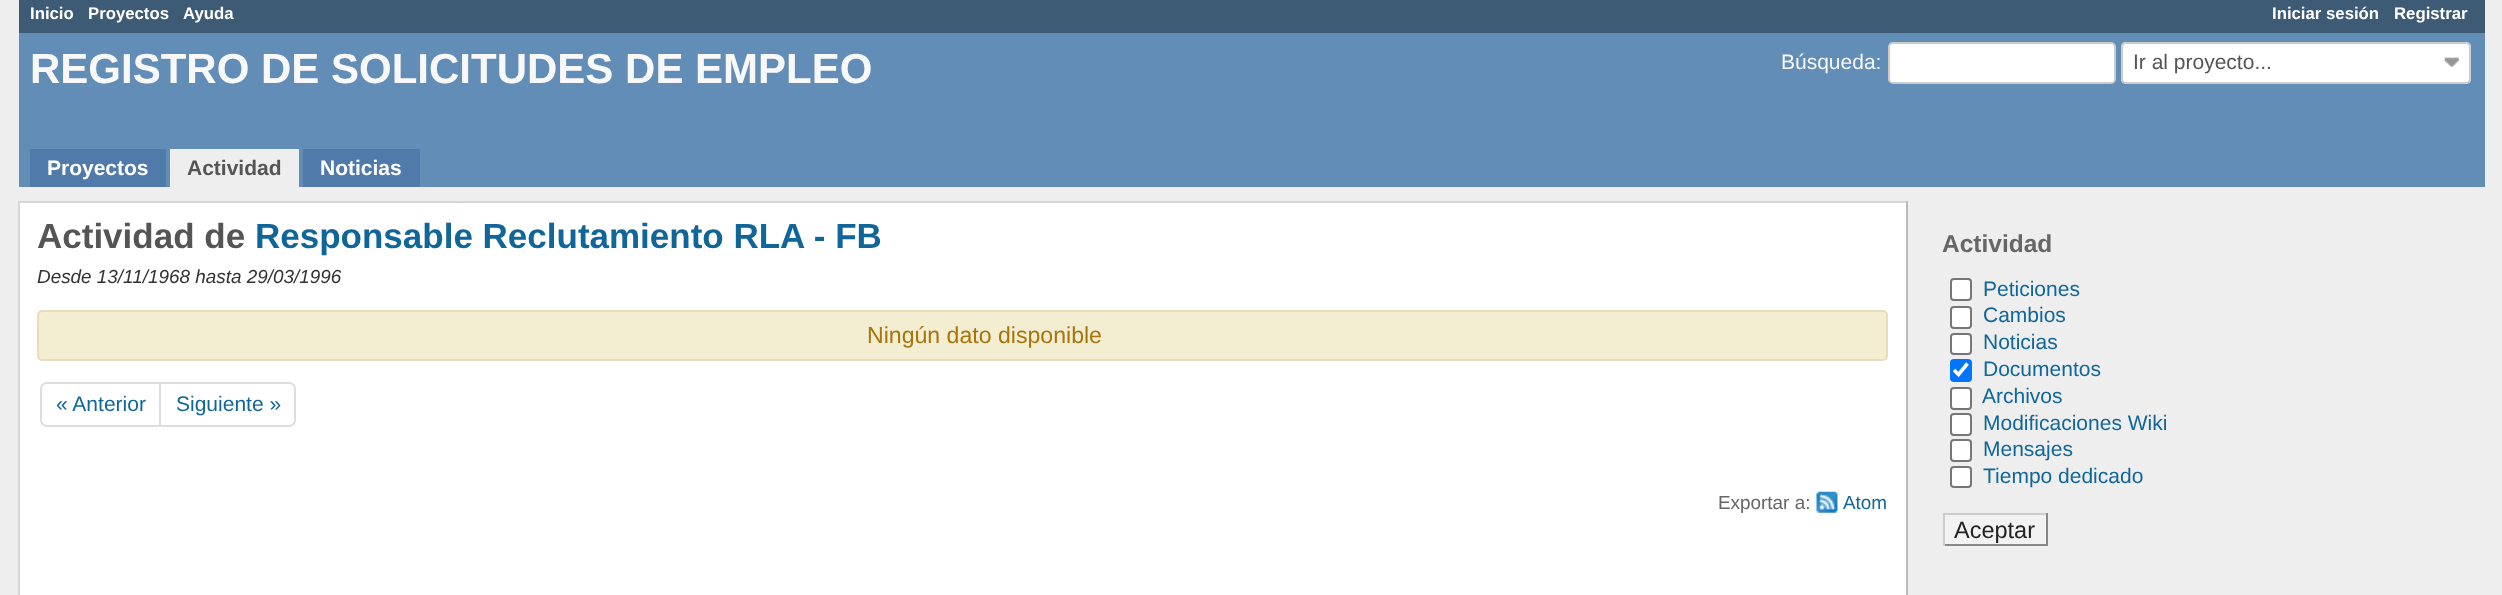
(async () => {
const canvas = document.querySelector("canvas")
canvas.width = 2502
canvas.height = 595
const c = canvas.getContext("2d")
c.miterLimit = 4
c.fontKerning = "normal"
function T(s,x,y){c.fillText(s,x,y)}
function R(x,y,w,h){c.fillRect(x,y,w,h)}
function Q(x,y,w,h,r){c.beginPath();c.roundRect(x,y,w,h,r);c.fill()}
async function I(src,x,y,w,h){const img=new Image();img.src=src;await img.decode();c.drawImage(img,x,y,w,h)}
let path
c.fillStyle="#eee"
R(0,0,2502,595)
c.fillStyle="#3e5b76"
R(19,0,2466,33)
c.font="bold 16.75px Liberation Sans"
c.fillStyle="#fff"
T("Inicio",30,19)
T("Proyectos",88,19)
T("Ayuda",183,19)
T("Iniciar sesión",2272,19)
T("Registrar",2394,19)
c.fillStyle="#628db6"
R(19,33,2466,154)
c.font="bold 42px Liberation Sans"
c.fillStyle="#f8f8f8"
T("REGISTRO DE SOLICITUDES DE EMPLEO",30,83)
c.font="21px Liberation Sans"
T("Búsqueda:",1781,69)
c.fillStyle="#fff"
c.beginPath()
c.roundRect(1889,43,226,40,4)
c.fill()
c.strokeStyle="#ccc"
c.lineWidth=2
c.stroke()
Q(2121,42,350,42,5)
await I("1.png",2444,57,15,10)
c.beginPath()
c.roundRect(2122,43,348,40,4)
c.stroke()
c.fillStyle="#555"
T("Ir al proyecto...",2133,69)
c.fillStyle="#507aaa"
R(30,149,136,38)
c.font="bold 21px Liberation Sans"
c.fillStyle="#fff"
T("Proyectos",47,175)
c.fillStyle="#eee"
R(170,149,129,38)
c.fillStyle="#555"
T("Actividad",187,175)
c.fillStyle="#507aaa"
R(303,149,117,38)
c.fillStyle="#fff"
T("Noticias",320,175)
R(20,203,1886,392)
c.fillStyle="#d7d7d7"
R(18,201,1890,2)
c.fillStyle="#bbb"
R(1906,201,2,394)
c.fillStyle="#d7d7d7"
R(18,201,2,394)
c.font="bold 35px Liberation Sans"
c.fillStyle="#555"
T("Actividad de",37,248)
c.fillStyle="#169"
T("Responsable Reclutamiento RLA - FB",255,248)
c.font="italic 18.9px Liberation Sans"
c.fillStyle="#333"
T("Desde 13/11/1968 hasta 29/03/1996",37,283)
c.fillStyle="#f3edd1"
c.beginPath()
c.roundRect(38,311,1849,49,4)
c.fill()
c.strokeStyle="#eadbbc"
c.stroke()
c.font="23.1px Liberation Sans"
c.fillStyle="#a6750c"
T("Ningún dato disponible",867,343)
c.beginPath()
c.roundRect(41,383,119,43,[6,0,0,6])
c.strokeStyle="#ddd"
c.stroke()
c.font="21px Liberation Sans"
c.fillStyle="#169"
T("« Anterior",56,411)
c.beginPath()
c.roundRect(160,383,135,43,[0,6,6,0])
c.stroke()
T("Siguiente »",176,411)
c.font="18.9px Liberation Sans"
c.fillStyle="#666"
T("Exportar a:",1718,509)
await I("2.png",1816,491,22,22)
c.fillStyle="#169"
T("Atom",1843,509)
c.font="bold 24.5px Liberation Sans"
c.fillStyle="#666"
T("Actividad",1942,252)
c.fillStyle="#fff"
c.beginPath()
c.roundRect(1951,279,20,21,3)
c.fill()
c.strokeStyle="#767676"
c.stroke()
c.font="21px Liberation Sans"
c.fillStyle="#169"
T("Peticiones",1983,296)
c.fillStyle="#fff"
c.beginPath()
c.roundRect(1951,307,20,21,3)
c.fill()
c.stroke()
c.fillStyle="#169"
T("Cambios",1983,322)
c.fillStyle="#fff"
c.beginPath()
c.roundRect(1951,334,20,20,3)
c.fill()
c.stroke()
c.fillStyle="#169"
T("Noticias",1983,349)
c.fillStyle="#0075ff"
Q(1950,359,22,23,4)
path = new Path2D("M1954 370l4.5 4.5l9-11")
c.strokeStyle="#fff"
c.lineWidth=3.6
c.stroke(path)
c.fillStyle="#169"
T("Documentos",1983,376)
c.fillStyle="#fff"
c.beginPath()
c.roundRect(1951,388,20,21,3)
c.fill()
c.strokeStyle="#767676"
c.lineWidth=2
c.stroke()
c.fillStyle="#169"
T("Archivos",1982,403)
c.fillStyle="#fff"
c.beginPath()
c.roundRect(1951,414,20,21,3)
c.fill()
c.stroke()
c.fillStyle="#169"
T("Modificaciones Wiki",1983,430)
c.fillStyle="#fff"
c.beginPath()
c.roundRect(1951,440,20,21,3)
c.fill()
c.stroke()
c.fillStyle="#169"
T("Mensajes",1983,456)
c.fillStyle="#fff"
c.beginPath()
c.roundRect(1951,467,20,20,3)
c.fill()
c.stroke()
c.fillStyle="#169"
T("Tiempo dedicado",1983,483)
c.fillStyle="#f2f2f2"
R(1945,515,101,29)
c.fillStyle="#ccc"
R(1943,513,105,2)
c.fillStyle="#888"
R(2046,513,2,33)
R(1943,544,105,2)
c.fillStyle="#ccc"
R(1943,513,2,33)
c.font="23.5px Liberation Sans"
c.fillStyle="#222"
T("Aceptar",1954,538)
})()
